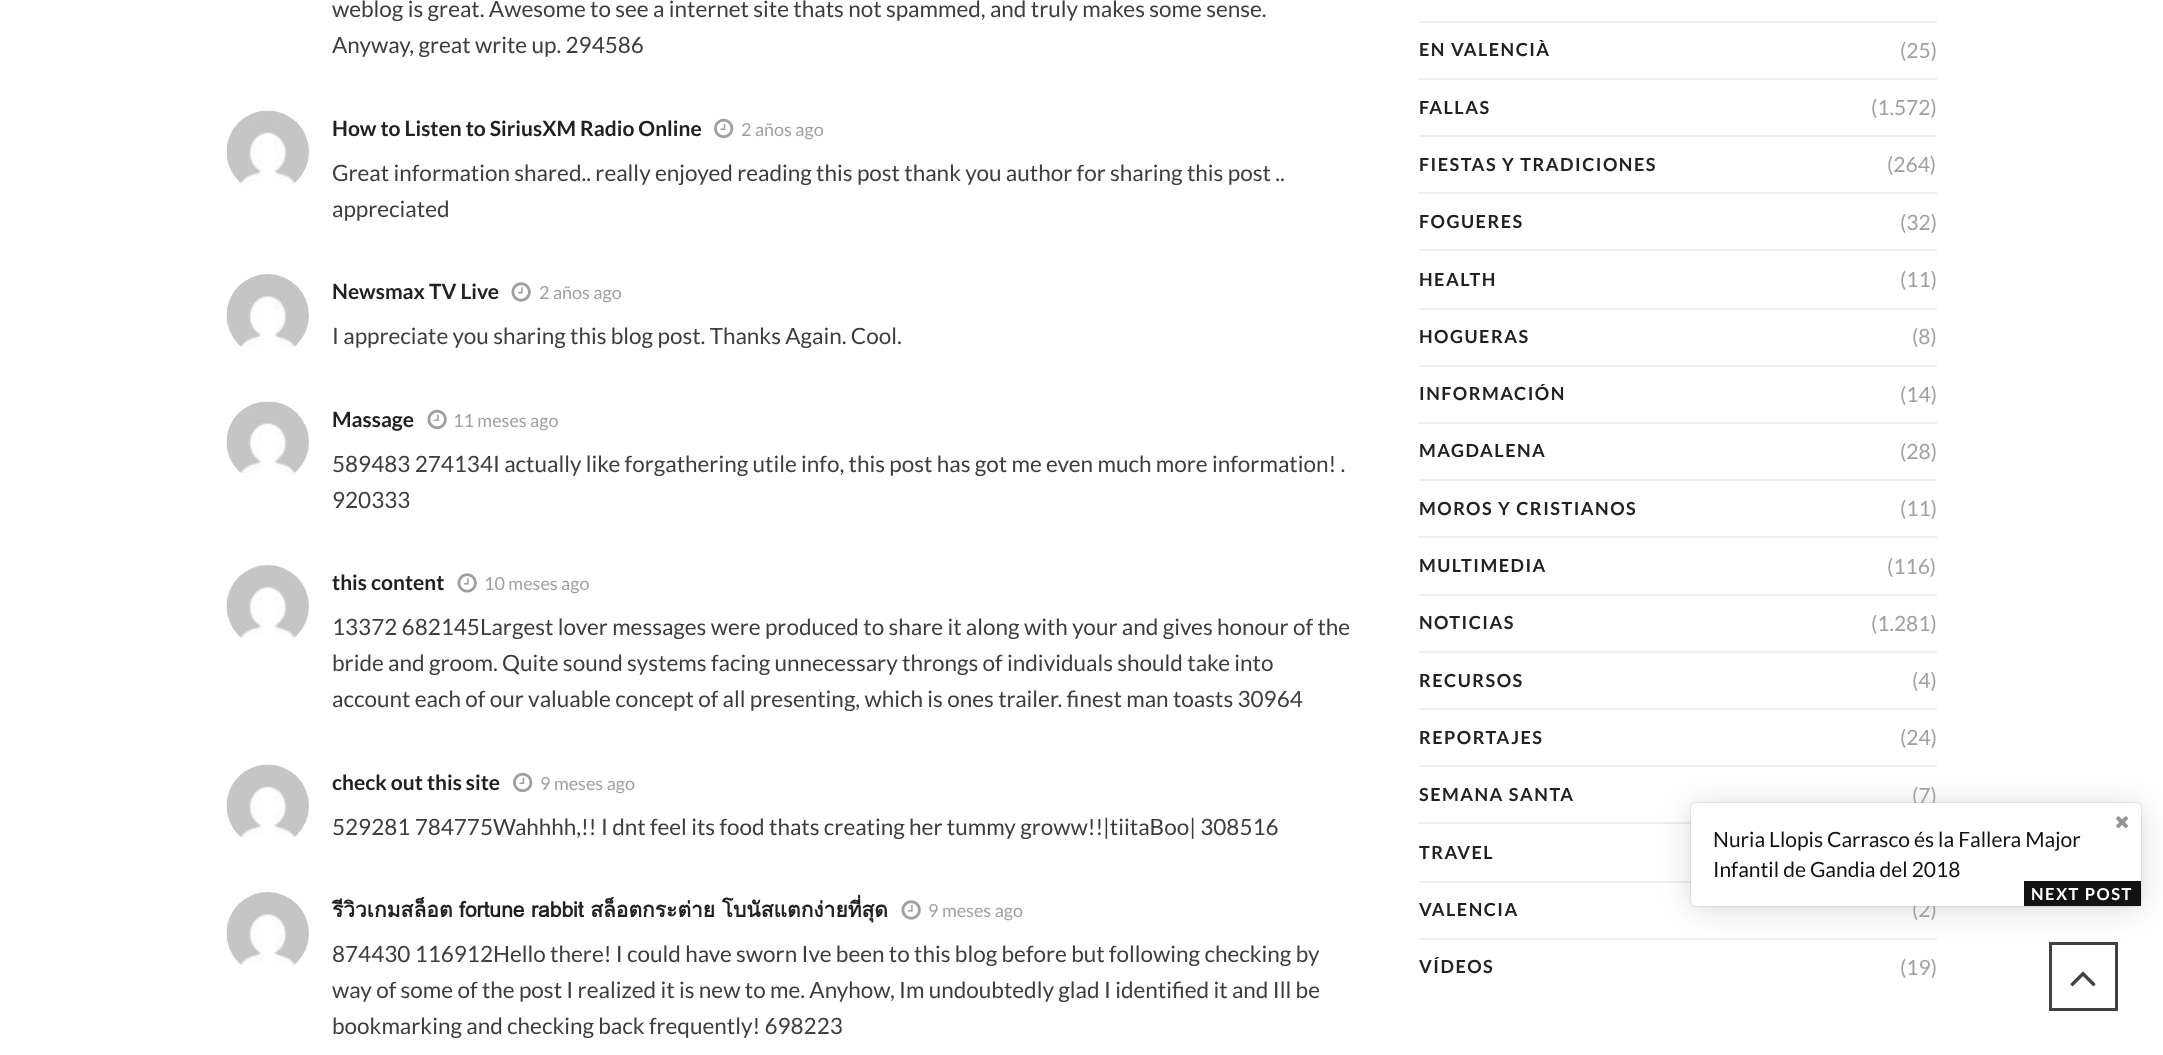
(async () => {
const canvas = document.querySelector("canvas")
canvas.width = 2163
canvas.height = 1055
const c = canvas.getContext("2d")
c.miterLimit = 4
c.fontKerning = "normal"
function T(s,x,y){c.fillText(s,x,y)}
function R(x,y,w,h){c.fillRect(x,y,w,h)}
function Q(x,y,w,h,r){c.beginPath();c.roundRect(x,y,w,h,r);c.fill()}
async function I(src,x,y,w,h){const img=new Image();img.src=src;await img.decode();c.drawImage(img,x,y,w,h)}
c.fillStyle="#fff"
R(0,0,2163,1055)
c.font="22.5px Lato"
c.fillStyle="#3d3d3d"
T("weblog is great. Awesome to see a internet site thats not spammed, and truly makes some sense.",332,17)
T("Anyway, great write up. 294586",332,53)
await I("1.png",226,110,83,77)
c.font="bold 21px Lato"
c.fillStyle="#212121"
T("How to Listen to SiriusXM Radio Online",332,136)
await I("2.png",714,118,20,21)
c.font="18px Lato"
c.fillStyle="#a0a0a0"
T("2 años ago",741,136)
c.font="22.5px Lato"
c.fillStyle="#3d3d3d"
T("Great information shared.. really enjoyed reading this post thank you author for sharing this post ..",332,181)
T("appreciated",332,217)
await I("3.png",226,274,83,74)
c.font="bold 21px Lato"
c.fillStyle="#212121"
T("Newsmax TV Live",332,299)
await I("4.png",511,282,20,20)
c.font="18px Lato"
c.fillStyle="#a0a0a0"
T("2 años ago",539,299)
c.font="22.5px Lato"
c.fillStyle="#3d3d3d"
T("I appreciate you sharing this blog post. Thanks Again. Cool.",332,344)
await I("5.png",226,401,83,76)
c.font="bold 21px Lato"
c.fillStyle="#212121"
T("Massage",332,427)
await I("6.png",427,409,20,21)
c.font="18px Lato"
c.fillStyle="#a0a0a0"
T("11 meses ago",453,427)
c.font="22.5px Lato"
c.fillStyle="#3d3d3d"
T("589483 274134I actually like forgathering utile info, this post has got me even much more information! .",332,472)
T("920333",332,508)
await I("3.png",226,565,83,74)
c.font="bold 21px Lato"
c.fillStyle="#212121"
T("this content",332,590)
await I("4.png",457,573,20,20)
c.font="18px Lato"
c.fillStyle="#a0a0a0"
T("10 meses ago",484,590)
c.font="22.5px Lato"
c.fillStyle="#3d3d3d"
T("13372 682145Largest lover messages were produced to share it along with your and gives honour of the",332,635)
T("bride and groom. Quite sound systems facing unnecessary throngs of individuals should take into",332,671)
T("account each of our valuable concept of all presenting, which is ones trailer. finest man toasts 30964",332,707)
await I("1.png",226,764,83,77)
c.font="bold 21px Lato"
c.fillStyle="#212121"
T("check out this site",332,790)
await I("2.png",513,772,20,21)
c.font="18px Lato"
c.fillStyle="#a0a0a0"
T("9 meses ago",540,790)
c.font="22.5px Lato"
c.fillStyle="#3d3d3d"
T("529281 784775Wahhhh,!! I dnt feel its food thats creating her tummy groww!!|tiitaBoo| 308516",332,835)
await I("7.png",226,892,83,74)
c.wordSpacing="-0.5px"
c.font="bold 21px Loma"
c.fillStyle="#212121"
T("รีวิวเกมสล็อต fortune rabbit สล็อตกระต่าย โบนัสแตกง่ายที่สุด",332,917)
await I("4.png",901,900,20,20)
c.wordSpacing="0px"
c.font="18px Lato"
c.fillStyle="#a0a0a0"
T("9 meses ago",928,917)
c.font="22.5px Lato"
c.fillStyle="#3d3d3d"
T("874430 116912Hello there! I could have sworn Ive been to this blog before but following checking by",332,962)
T("way of some of the post I realized it is new to me. Anyhow, Im undoubtedly glad I identified it and Ill be",332,998)
T("bookmarking and checking back frequently! 698223",332,1034)
c.fillStyle="#eee"
R(1419,765,518,2)
R(1419,822,272,2)
R(1419,881,272,2)
R(1419,938,518,2)
c.fillStyle="#00000026"
c.filter="blur(15px)"
c.beginPath()
c.roundRect(1691,806,450,103,5)
c.fill()
c.filter="none"
c.fillStyle="#00000033"
c.filter="blur(1px)"
c.beginPath()
c.roundRect(1691,803,450,103,5)
c.fill()
c.filter="none"
c.font="21px Lato"
c.fillStyle="#a0a0a0"
T("(7)",1912,803)
T("(2)",1912,917)
c.fillStyle="#fff"
Q(1691,803,450,103,5)
await I("8.png",2116,816,12,13)
c.fillStyle="#121212"
T("Nuria Llopis Carrasco és la Fallera Major",1713,847)
T("Infantil de Gandia del 2018",1713,877)
R(2024,881,117,25)
c.letterSpacing="1.5px"
c.font="bold 16.5px Lato"
c.fillStyle="#fff"
T("NEXT POST",2031,900)
c.fillStyle="#eee"
R(1419,21,518,2)
c.font="bold 18px Lato"
c.fillStyle="#212121"
T("EN VALENCIÀ",1419,56)
c.letterSpacing="0px"
c.font="21px Lato"
c.fillStyle="#a0a0a0"
T("(25)",1900,58)
c.fillStyle="#eee"
R(1419,78,518,2)
c.letterSpacing="1.5px"
c.font="bold 18px Lato"
c.fillStyle="#212121"
T("FALLAS",1419,114)
c.letterSpacing="0px"
c.font="21px Lato"
c.fillStyle="#a0a0a0"
T("(1.572)",1871,115)
c.fillStyle="#eee"
R(1419,135,518,2)
c.letterSpacing="1.5px"
c.font="bold 18px Lato"
c.fillStyle="#212121"
T("FIESTAS Y TRADICIONES",1419,171)
c.letterSpacing="0px"
c.font="21px Lato"
c.fillStyle="#a0a0a0"
T("(264)",1887,172)
c.fillStyle="#eee"
R(1419,192,518,2)
c.letterSpacing="1.5px"
c.font="bold 18px Lato"
c.fillStyle="#212121"
T("FOGUERES",1419,228)
c.letterSpacing="0px"
c.font="21px Lato"
c.fillStyle="#a0a0a0"
T("(32)",1900,230)
c.fillStyle="#eee"
R(1419,249,518,2)
c.letterSpacing="1.5px"
c.font="bold 18px Lato"
c.fillStyle="#212121"
T("HEALTH",1419,286)
c.letterSpacing="0px"
c.font="21px Lato"
c.fillStyle="#a0a0a0"
T("(11)",1900,287)
c.fillStyle="#eee"
R(1419,308,518,2)
c.letterSpacing="1.5px"
c.font="bold 18px Lato"
c.fillStyle="#212121"
T("HOGUERAS",1419,343)
c.letterSpacing="0px"
c.font="21px Lato"
c.fillStyle="#a0a0a0"
T("(8)",1912,344)
c.fillStyle="#eee"
R(1419,365,518,2)
c.letterSpacing="1.5px"
c.font="bold 18px Lato"
c.fillStyle="#212121"
T("INFORMACIÓN",1419,400)
c.letterSpacing="0px"
c.font="21px Lato"
c.fillStyle="#a0a0a0"
T("(14)",1900,402)
c.fillStyle="#eee"
R(1419,422,518,2)
c.letterSpacing="1.5px"
c.font="bold 18px Lato"
c.fillStyle="#212121"
T("MAGDALENA",1419,457)
c.letterSpacing="0px"
c.font="21px Lato"
c.fillStyle="#a0a0a0"
T("(28)",1900,459)
c.fillStyle="#eee"
R(1419,479,518,2)
c.letterSpacing="1.5px"
c.font="bold 18px Lato"
c.fillStyle="#212121"
T("MOROS Y CRISTIANOS",1419,515)
c.letterSpacing="0px"
c.font="21px Lato"
c.fillStyle="#a0a0a0"
T("(11)",1900,516)
c.fillStyle="#eee"
R(1419,536,518,2)
c.letterSpacing="1.5px"
c.font="bold 18px Lato"
c.fillStyle="#212121"
T("MULTIMEDIA",1419,572)
c.letterSpacing="0px"
c.font="21px Lato"
c.fillStyle="#a0a0a0"
T("(116)",1887,574)
c.fillStyle="#eee"
R(1419,594,518,2)
c.letterSpacing="1.5px"
c.font="bold 18px Lato"
c.fillStyle="#212121"
T("NOTICIAS",1419,629)
c.letterSpacing="0px"
c.font="21px Lato"
c.fillStyle="#a0a0a0"
T("(1.281)",1871,631)
c.fillStyle="#eee"
R(1419,651,518,2)
c.letterSpacing="1.5px"
c.font="bold 18px Lato"
c.fillStyle="#212121"
T("RECURSOS",1419,687)
c.letterSpacing="0px"
c.font="21px Lato"
c.fillStyle="#a0a0a0"
T("(4)",1912,688)
c.fillStyle="#eee"
R(1419,708,518,2)
c.letterSpacing="1.5px"
c.font="bold 18px Lato"
c.fillStyle="#212121"
T("REPORTAJES",1419,744)
c.letterSpacing="0px"
c.font="21px Lato"
c.fillStyle="#a0a0a0"
T("(24)",1900,745)
c.letterSpacing="1.5px"
c.font="bold 18px Lato"
c.fillStyle="#212121"
T("SEMANA SANTA",1419,801)
T("TRAVEL",1419,859)
T("VALENCIA",1419,916)
T("VÍDEOS",1419,973)
c.letterSpacing="0px"
c.font="21px Lato"
c.fillStyle="#a0a0a0"
T("(19)",1900,975)
c.strokeStyle="#414141"
c.lineWidth=3
c.strokeRect(2050.5,943.5,66,66)
await I("9.png",2070,971,26,16)
})()
